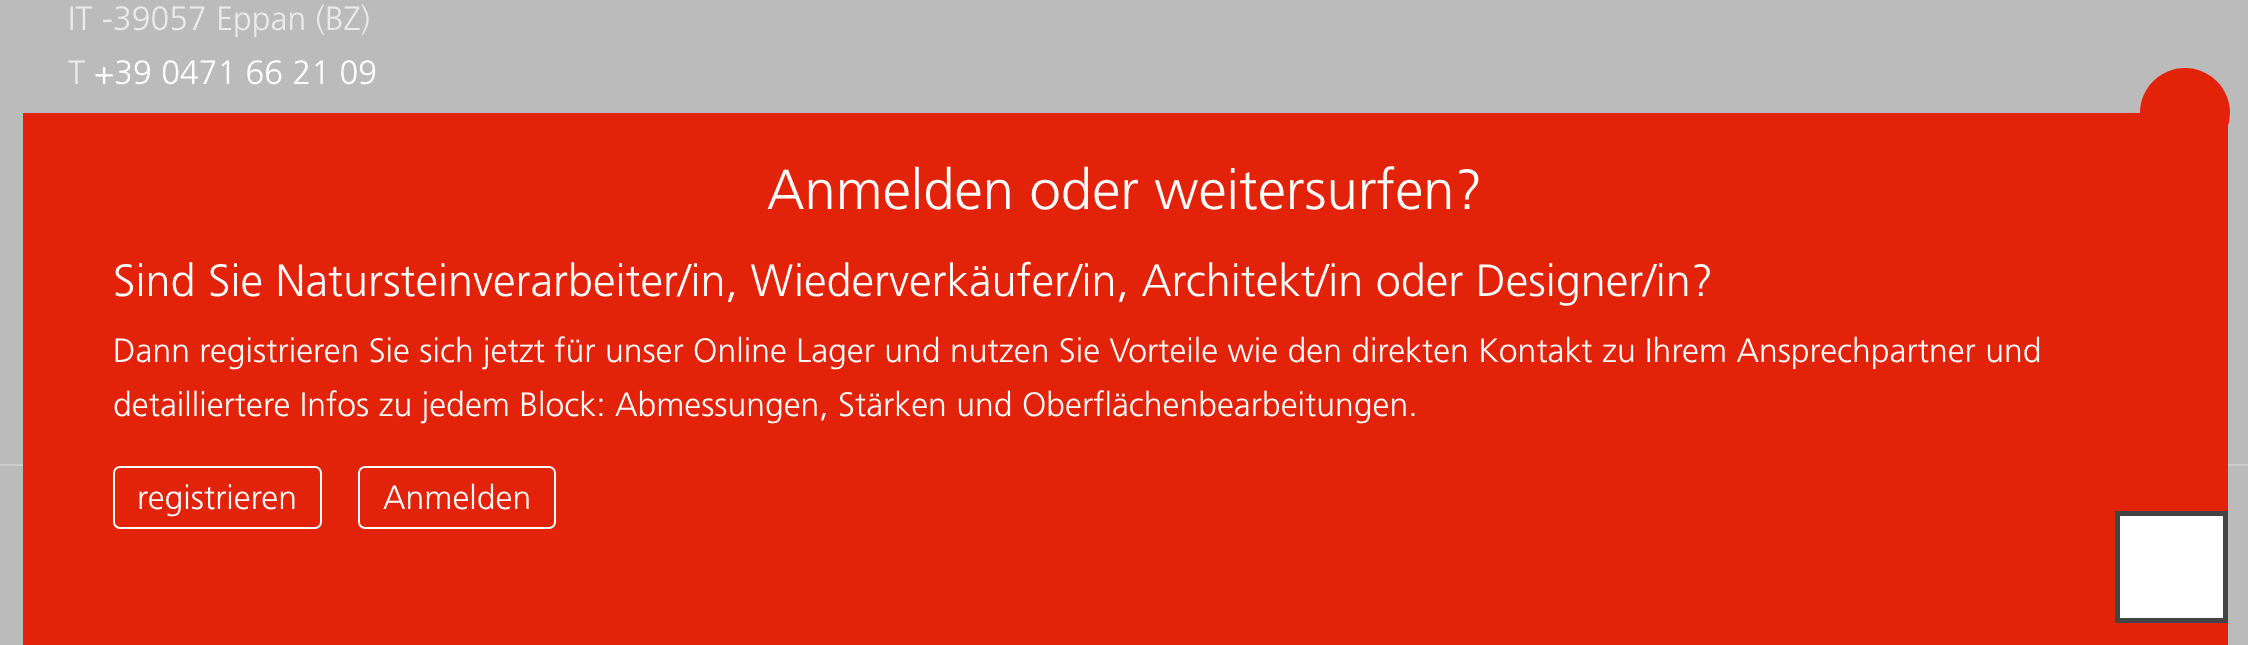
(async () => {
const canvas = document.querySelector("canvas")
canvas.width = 2248
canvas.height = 645
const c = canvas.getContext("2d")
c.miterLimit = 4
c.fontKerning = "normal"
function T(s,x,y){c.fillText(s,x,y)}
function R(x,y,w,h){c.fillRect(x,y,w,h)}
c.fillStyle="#bbb"
R(0,0,2248,645)
c.font="300 33.75px frutiger"
c.fillStyle="#ebebeb"
T("IT -39057 Eppan (BZ)",68,30)
T("T",68,84)
c.fillStyle="#fff"
T("+39 0471 66 21 09",94,84)
c.fillStyle="#ccc"
R(0,464,2248,2)
c.fillStyle="#e22309"
R(23,113,2205,532)
c.beginPath()
c.arc(2185,113,45,0,7)
c.fill()
c.font="300 56.25px frutiger"
c.fillStyle="#fff"
T("Anmelden oder weitersurfen?",767,209)
c.font="300 45px frutiger"
T("Sind Sie Natursteinverarbeiter/in, Wiederverkäufer/in, Architekt/in oder Designer/in?",113,296)
c.font="300 33.75px frutiger"
T("Dann registrieren Sie sich jetzt für unser Online Lager und nutzen Sie Vorteile wie den direkten Kontakt zu Ihrem Ansprechpartner und",113,362)
T("detailliertere Infos zu jedem Block: Abmessungen, Stärken und Oberflächenbearbeitungen.",113,416)
c.beginPath()
c.roundRect(114,467,207,61,6)
c.strokeStyle="#fff"
c.lineWidth=2
c.stroke()
T("registrieren",137,509)
c.beginPath()
c.roundRect(359,467,196,61,6)
c.stroke()
T("Anmelden",383,509)
c.beginPath()
c.rect(2117.5,513.5,108,107)
c.fill()
c.strokeStyle="#444"
c.lineWidth=5
c.stroke()
})()
